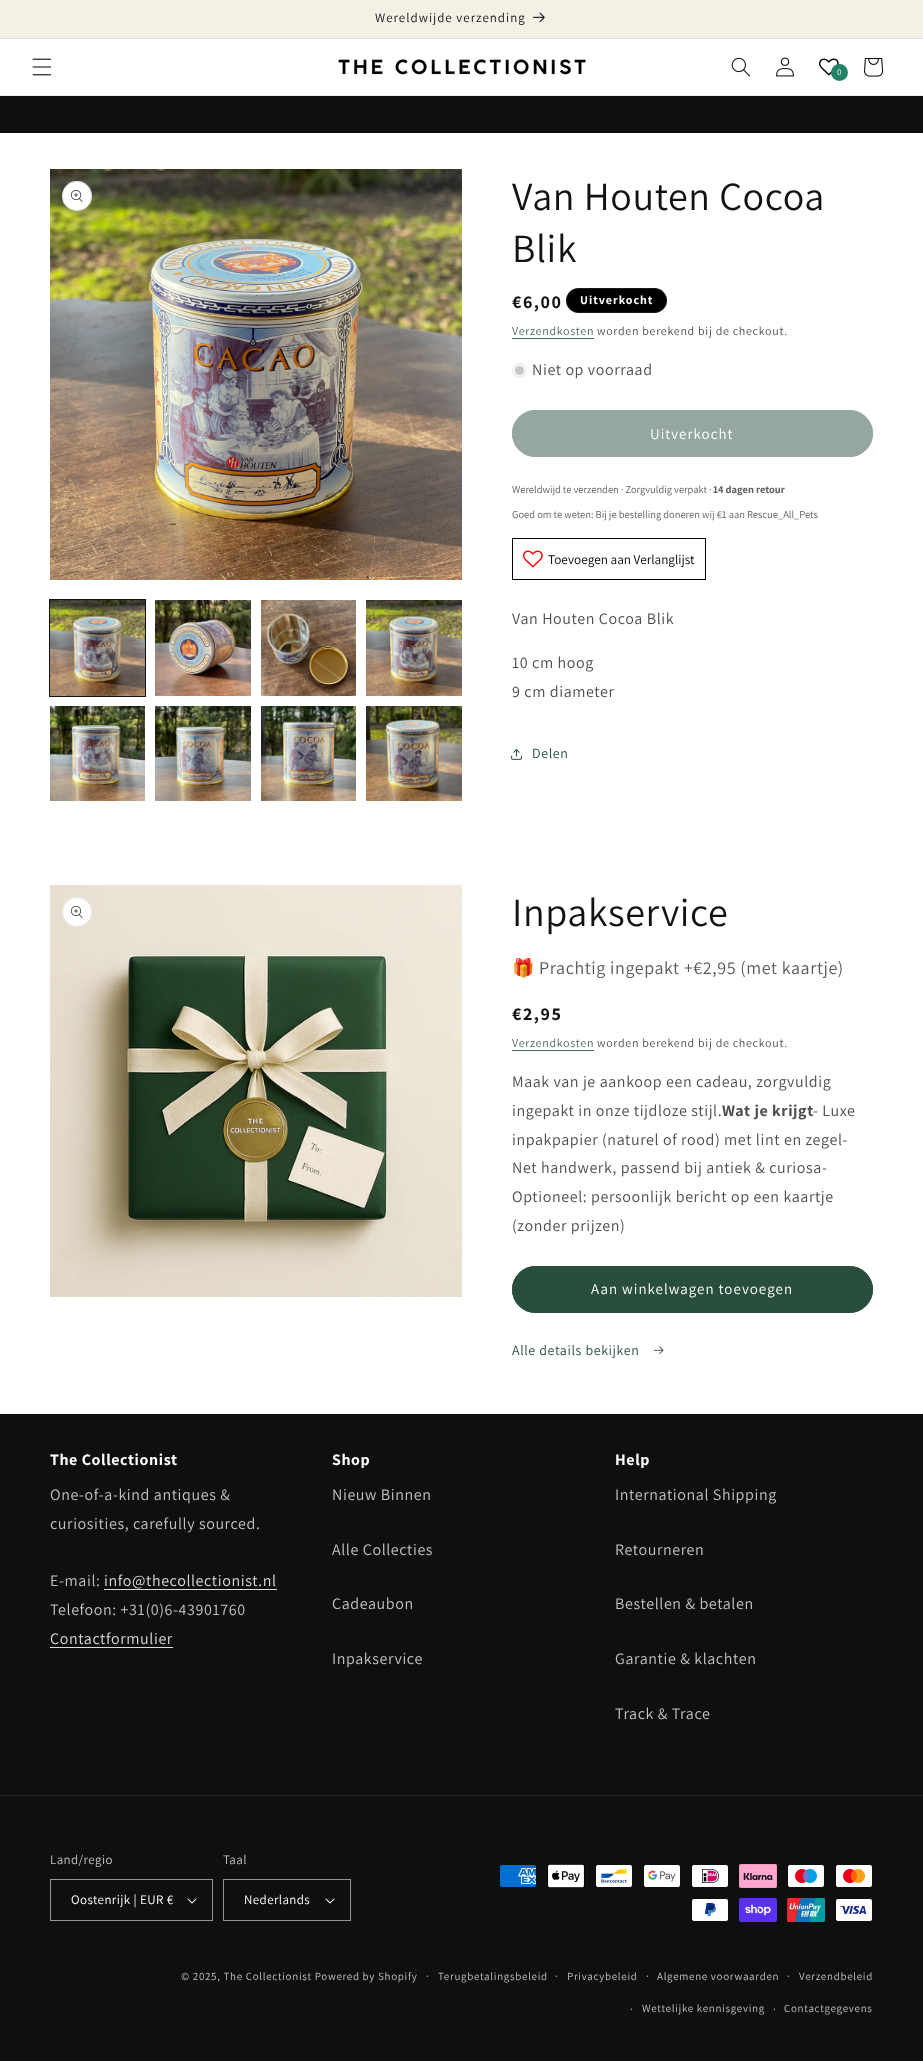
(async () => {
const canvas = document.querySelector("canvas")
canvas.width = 923
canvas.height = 2061
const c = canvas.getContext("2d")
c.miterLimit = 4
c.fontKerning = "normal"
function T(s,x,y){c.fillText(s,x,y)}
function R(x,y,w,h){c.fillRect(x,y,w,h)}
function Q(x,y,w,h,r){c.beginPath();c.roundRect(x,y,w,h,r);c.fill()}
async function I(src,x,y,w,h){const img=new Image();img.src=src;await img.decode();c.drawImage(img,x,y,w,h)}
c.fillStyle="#fff"
R(0,0,923,2061)
c.fillStyle="#f5f0e6"
R(0,0,923,38)
c.fillStyle="#e3ded5"
R(0,38,923,1)
c.letterSpacing="1px"
c.font="13px Assistant"
c.fillStyle="#121212"
T("Wereldwijde verzending",375,22)
await I("1.png",533,12,12,11)
c.fillStyle="#ececec"
R(0,95,923,1)
await I("2.png",32,58,20,18)
await I("3.png",338,59,248,16)
await I("4.png",731,57,19,20)
await I("5.png",776,57,18,20)
await I("6.png",819,58,20,18)
c.fillStyle="#258165"
c.beginPath()
c.arc(839.5,72.5,8.5,0,7)
c.fill()
c.letterSpacing="0px"
c.font="9px Assistant"
c.fillStyle="#fff"
T("0",837,75)
await I("7.png",864,58,20,19)
c.fillStyle="#0f0f0f"
R(0,96,923,37)
await I("8.png",50,169,412,411)
c.fillStyle="#fff"
c.beginPath()
c.arc(77,196,15,0,7)
c.fill()
c.beginPath()
c.arc(77,196,14.5,0,7)
c.strokeStyle="#1212121a"
c.stroke()
await I("9.png",71,190,12,12)
c.strokeStyle="#121212"
c.strokeRect(49.5,599.5,96,97)
await I("10.png",50,600,95,96)
await I("11.png",155,600,96,96)
await I("12.png",261,600,95,96)
await I("13.png",366,600,96,96)
await I("14.png",50,706,95,95)
await I("15.png",155,706,96,95)
await I("16.png",261,706,95,95)
await I("17.png",366,706,96,95)
c.letterSpacing="0.6px"
c.font="40px Assistant"
c.fillStyle="#121212"
T("Van Houten Cocoa",512,210)
T("Blik",512,262)
c.letterSpacing="1.5px"
c.font="bold 18px Assistant"
T("€6,00",512,308)
c.fillStyle="#000"
Q(566,288,101,25,12.5)
c.beginPath()
c.roundRect(566.5,288.5,100,24,12)
c.strokeStyle="#ffffff1a"
c.stroke()
c.letterSpacing="1px"
c.font="bold 12px Assistant"
c.fillStyle="#fff"
T("Uitverkocht",580,304)
c.letterSpacing="0.7px"
c.font="12px Assistant"
c.fillStyle="#4a6959"
T("Verzendkosten",512,335)
R(512,338,82,1)
c.fillStyle="#4d4d4d"
T("worden berekend bij de checkout.",597,335)
c.fillStyle="#efefef"
c.beginPath()
c.arc(519.5,370.5,7.5,0,7)
c.fill()
c.fillStyle="#c8c8c8"
c.beginPath()
c.arc(519.5,370.5,5,0,7)
c.fill()
c.strokeStyle="#fff"
c.stroke()
c.letterSpacing="0.6px"
c.font="16px Assistant"
c.fillStyle="#4d4d4d"
T("Niet op voorraad",532,375)
c.fillStyle="#95a79e"
Q(512,410,361,47,23.5)
c.beginPath()
c.roundRect(512.5,410.5,360,46,23)
c.strokeStyle="#95a79e"
c.stroke()
c.letterSpacing="1px"
c.font="15px Assistant"
c.fillStyle="#fff"
T("Uitverkocht",650,439)
c.letterSpacing="0px"
c.font="10.5px Assistant"
c.fillStyle="#5f5f5f"
T("Wereldwijd te verzenden · Zorgvuldig verpakt ·",512,493)
c.font="bold 10.5px Assistant"
T("14 dagen retour",713,493)
c.font="10.5px Assistant"
T("Goed om te weten: Bij je bestelling doneren wij €1 aan Rescue_All_Pets",512,518)
c.strokeStyle="#000"
c.strokeRect(512.5,538.5,193,41)
await I("18.png",523,550,20,18)
c.font="13.25px Assistant"
c.fillStyle="#000"
T("Toevoegen aan Verlanglijst",548,564)
c.letterSpacing="0.6px"
c.font="16px Assistant"
c.fillStyle="#4d4d4d"
T("Van Houten Cocoa Blik",512,624)
T("10 cm hoog",512,668)
T("9 cm diameter",512,697)
await I("19.png",511,749,11,11)
c.font="14px Assistant"
c.fillStyle="#2a4e3c"
T("Delen",532,758)
await I("20.png",50,885,412,412)
c.fillStyle="#fff"
c.beginPath()
c.arc(77,912,15,0,7)
c.fill()
c.beginPath()
c.arc(77,912,14.5,0,7)
c.strokeStyle="#1212121a"
c.stroke()
await I("9.png",71,906,12,12)
c.font="40px Assistant"
c.fillStyle="#121212"
T("Inpakservice",512,926)
c.font="18px Noto Color Emoji"
c.fillStyle="#595959"
T("🎁",512,974)
c.font="18px Assistant"
T("Prachtig ingepakt +€2,95 (met kaartje)",539,974)
c.letterSpacing="1.5px"
c.font="bold 18px Assistant"
c.fillStyle="#121212"
T("€2,95",512,1020)
c.letterSpacing="0.7px"
c.font="12px Assistant"
c.fillStyle="#4a6959"
T("Verzendkosten",512,1047)
R(512,1050,82,1)
c.fillStyle="#4d4d4d"
T("worden berekend bij de checkout.",597,1047)
c.letterSpacing="0.6px"
c.font="16px Assistant"
T("Maak van je aankoop een cadeau, zorgvuldig",512,1087)
T("ingepakt in onze tijdloze stijl.",512,1116)
c.font="bold 16px Assistant"
T("Wat je krijgt",722,1116)
c.font="16px Assistant"
T("- Luxe",813,1116)
T("inpakpapier (naturel of rood) met lint en zegel-",512,1145)
T("Net handwerk, passend bij antiek & curiosa-",512,1173)
T("Optioneel: persoonlijk bericht op een kaartje",512,1202)
T("(zonder prijzen)",512,1231)
c.fillStyle="#2a4e3c"
Q(512,1266,361,47,23.5)
c.beginPath()
c.roundRect(512.5,1266.5,360,46,23)
c.strokeStyle="#2a4e3c"
c.stroke()
c.letterSpacing="1px"
c.font="15px Assistant"
c.fillStyle="#fff"
T("Aan winkelwagen toevoegen",591,1294)
c.letterSpacing="0.6px"
c.font="14px Assistant"
c.fillStyle="#2a4e3c"
T("Alle details bekijken",512,1355)
await I("21.png",654,1346,10,9)
c.fillStyle="#0f0f0f"
R(0,1414,923,647)
c.font="bold 16px Assistant"
c.fillStyle="#fff"
T("The Collectionist",50,1465)
c.font="16px Assistant"
c.fillStyle="#c3c3c3"
T("One-of-a-kind antiques &",50,1500)
T("curiosities, carefully sourced.",50,1529)
T("E-mail:",50,1586)
c.fillStyle="#dbdbdb"
T("info@thecollectionist.nl",104,1586)
R(104,1589,173,1)
c.fillStyle="#c3c3c3"
T("Telefoon: +31(0)6-43901760",50,1615)
c.fillStyle="#dbdbdb"
T("Contactformulier",50,1644)
R(50,1647,123,1)
c.font="bold 16px Assistant"
c.fillStyle="#fff"
T("Shop",332,1465)
c.font="16px Assistant"
c.fillStyle="#c3c3c3"
T("Nieuw Binnen",332,1500)
T("Alle Collecties",332,1555)
T("Cadeaubon",332,1609)
T("Inpakservice",332,1664)
c.font="bold 16px Assistant"
c.fillStyle="#fff"
T("Help",615,1465)
c.font="16px Assistant"
c.fillStyle="#c3c3c3"
T("International Shipping",615,1500)
T("Retourneren",615,1555)
T("Bestellen & betalen",615,1609)
T("Garantie & klachten",615,1664)
T("Track & Trace",615,1719)
c.fillStyle="#222"
R(0,1795,923,1)
c.letterSpacing="0.4px"
c.font="13px Assistant"
c.fillStyle="#c3c3c3"
T("Land/regio",50,1864)
await I("22.png",187,1898,10,6)
c.strokeStyle="#939393"
c.strokeRect(50.5,1879.5,162,41)
c.fillStyle="#fff"
T("Oostenrijk | EUR €",71,1904)
c.fillStyle="#c3c3c3"
T("Taal",223,1864)
await I("22.png",325,1898,10,6)
c.strokeRect(223.5,1879.5,127,41)
c.fillStyle="#fff"
T("Nederlands",244,1904)
await I("23.png",500,1865,36,22)
await I("24.png",547,1864,38,24)
await I("25.png",596,1865,36,22)
await I("26.png",644,1865,36,22)
await I("27.png",692,1865,36,22)
await I("28.png",739,1864,38,24)
await I("29.png",788,1865,36,22)
await I("30.png",836,1865,36,22)
await I("31.png",692,1899,36,22)
await I("32.png",739,1898,38,24)
await I("33.png",787,1898,38,24)
await I("34.png",836,1899,36,22)
c.letterSpacing="0.7px"
c.font="11px Assistant"
c.fillStyle="#c3c3c3"
T("© 2025, The Collectionist Powered by Shopify",181,1980)
c.font="12px Assistant"
T("·",426,1980)
c.font="11px Assistant"
T("Terugbetalingsbeleid",438,1980)
c.font="12px Assistant"
T("·",555,1980)
c.font="11px Assistant"
T("Privacybeleid",567,1980)
c.font="12px Assistant"
T("·",646,1980)
c.font="11px Assistant"
T("Algemene voorwaarden",657,1980)
c.font="12px Assistant"
T("·",787,1980)
c.font="11px Assistant"
T("Verzendbeleid",799,1980)
c.font="12px Assistant"
T("·",630,2013)
c.font="11px Assistant"
T("Wettelijke kennisgeving",642,2012)
c.font="12px Assistant"
T("·",773,2013)
c.font="11px Assistant"
T("Contactgegevens",784,2012)
})()
